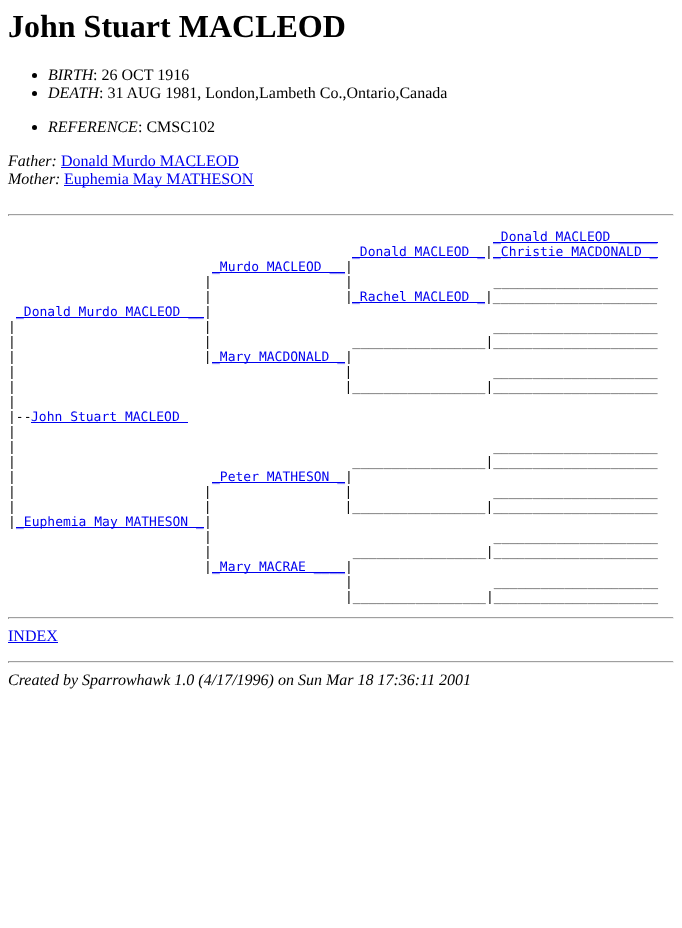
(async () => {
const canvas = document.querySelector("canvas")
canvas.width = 682
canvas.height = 928
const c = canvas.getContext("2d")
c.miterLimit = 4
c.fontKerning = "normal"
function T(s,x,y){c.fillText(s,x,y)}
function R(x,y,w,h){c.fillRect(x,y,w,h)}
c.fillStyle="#fff"
R(0,0,682,928)
c.font="bold 32px Liberation Serif"
c.fillStyle="#000"
T("John Stuart MACLEOD",8,37)
c.beginPath()
c.arc(34.5,75.5,2.5,0,7)
c.fill()
c.font="italic 16px Liberation Serif"
T("BIRTH",48,80)
c.font="16px Liberation Serif"
T(": 26 OCT 1916",93,80)
c.beginPath()
c.arc(34.5,93.5,2.5,0,7)
c.fill()
c.font="italic 16px Liberation Serif"
T("DEATH",48,98)
c.font="16px Liberation Serif"
T(": 31 AUG 1981, London,Lambeth Co.,Ontario,Canada",99,98)
c.beginPath()
c.arc(34.5,127.5,2.5,0,7)
c.fill()
c.font="italic 16px Liberation Serif"
T("REFERENCE",48,132)
c.font="16px Liberation Serif"
T(": CMSC102",138,132)
c.font="italic 16px Liberation Serif"
T("Father:",8,166)
c.font="16px Liberation Serif"
c.fillStyle="#00e"
T("Donald Murdo MACLEOD",61,166)
R(61,167,178,1)
c.font="italic 16px Liberation Serif"
c.fillStyle="#000"
T("Mother:",8,184)
c.fillStyle="#00e"
R(64,185,190,1)
c.font="16px Liberation Serif"
T("Euphemia May MATHESON",64,184)
c.fillStyle="#9f9f9f"
R(8,214,666,1)
c.fillStyle="#eee"
R(673,214,1,2)
R(8,215,666,1)
c.fillStyle="#9f9f9f"
R(8,214,1,2)
c.fillStyle="#00e"
R(493,242,165,1)
c.font="13px DejaVu Sans Mono"
T("_Donald MACLEOD _____",493,241)
R(352,257,133,1)
T("_Donald MACLEOD _",352,256)
c.fillStyle="#000"
T("|",485,256)
c.fillStyle="#00e"
R(493,257,165,1)
T("_Christie MACDONALD _",493,256)
R(212,272,133,1)
T("_Murdo MACLEOD __",212,271)
c.fillStyle="#000"
T("|",345,271)
T("|                 |                  _____________________",204,286)
T("|                 |",204,301)
c.fillStyle="#00e"
R(352,302,133,1)
T("_Rachel MACLEOD _",352,301)
c.fillStyle="#000"
T("|_____________________",485,301)
c.fillStyle="#00e"
R(16,317,188,1)
T("_Donald Murdo MACLEOD __",16,316)
c.fillStyle="#000"
T("|",204,316)
T("|                        |                                    _____________________",8,331)
T("|                        |                  _________________|_____________________",8,346)
T("|                        |",8,361)
c.fillStyle="#00e"
R(212,362,133,1)
T("_Mary MACDONALD _",212,361)
c.fillStyle="#000"
T("|",345,361)
T("|                                          |                  _____________________",8,376)
T("|                                          |_________________|_____________________",8,391)
T("|",8,406)
T("|--",8,421)
c.fillStyle="#00e"
T("John Stuart MACLEOD",31,421)
R(31,422,157,1)
c.fillStyle="#000"
T("|",8,436)
T("|                                                             _____________________",8,451)
T("|                                           _________________|_____________________",8,466)
T("|",8,481)
c.fillStyle="#00e"
R(212,482,133,1)
T("_Peter MATHESON _",212,481)
c.fillStyle="#000"
T("|",345,481)
T("|                        |                 |                  _____________________",8,496)
T("|                        |                 |_________________|_____________________",8,511)
T("|",8,526)
c.fillStyle="#00e"
R(16,527,188,1)
T("_Euphemia May MATHESON _",16,526)
c.fillStyle="#000"
T("|",204,526)
T("|                                    _____________________",204,541)
T("|                  _________________|_____________________",204,556)
T("|",204,571)
c.fillStyle="#00e"
R(212,572,133,1)
T("_Mary MACRAE ____",212,571)
c.fillStyle="#000"
T("|",345,571)
T("|                  _____________________",345,586)
T("|_________________|_____________________",345,601)
c.fillStyle="#9f9f9f"
R(8,617,666,1)
c.fillStyle="#eee"
R(673,617,1,2)
R(8,618,666,1)
c.fillStyle="#9f9f9f"
R(8,617,1,2)
c.font="16px Liberation Serif"
c.fillStyle="#00e"
T("INDEX",8,641)
R(8,642,50,1)
c.fillStyle="#9f9f9f"
R(8,661,666,1)
c.fillStyle="#eee"
R(673,661,1,2)
R(8,662,666,1)
c.fillStyle="#9f9f9f"
R(8,661,1,2)
c.font="italic 16px Liberation Serif"
c.fillStyle="#000"
T("Created by Sparrowhawk 1.0 (4/17/1996) on Sun Mar 18 17:36:11 2001",8,685)
})()
